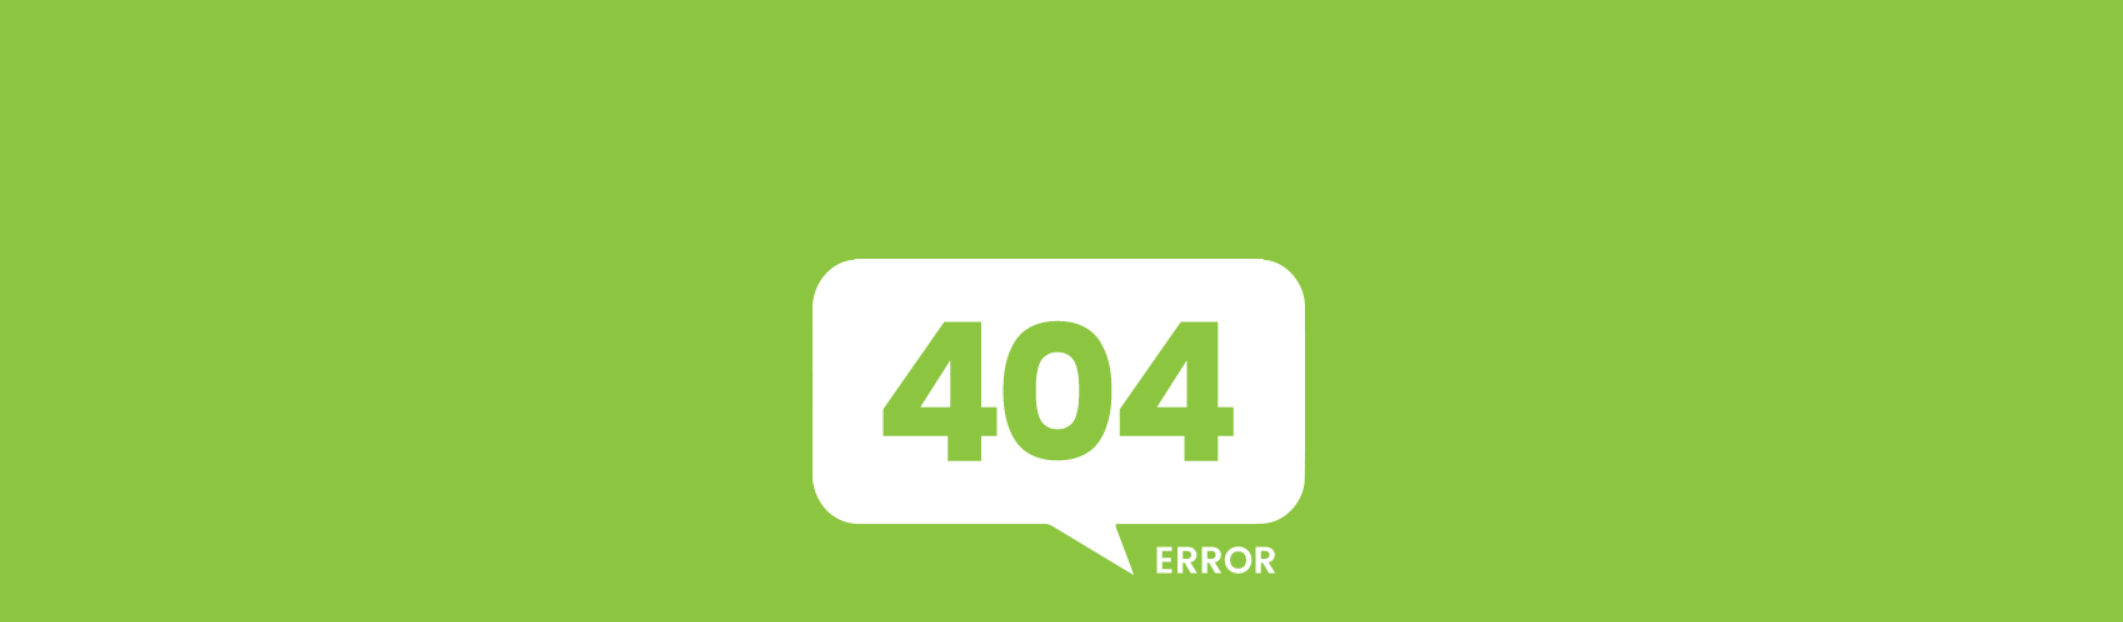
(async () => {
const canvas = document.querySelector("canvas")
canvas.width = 2123
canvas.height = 622
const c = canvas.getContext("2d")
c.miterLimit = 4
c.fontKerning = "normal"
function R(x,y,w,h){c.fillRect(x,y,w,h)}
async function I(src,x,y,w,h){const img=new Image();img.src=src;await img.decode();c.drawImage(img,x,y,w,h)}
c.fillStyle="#8cc641"
R(0,0,2123,622)
await I("1.png",812,258,494,318)
})()
